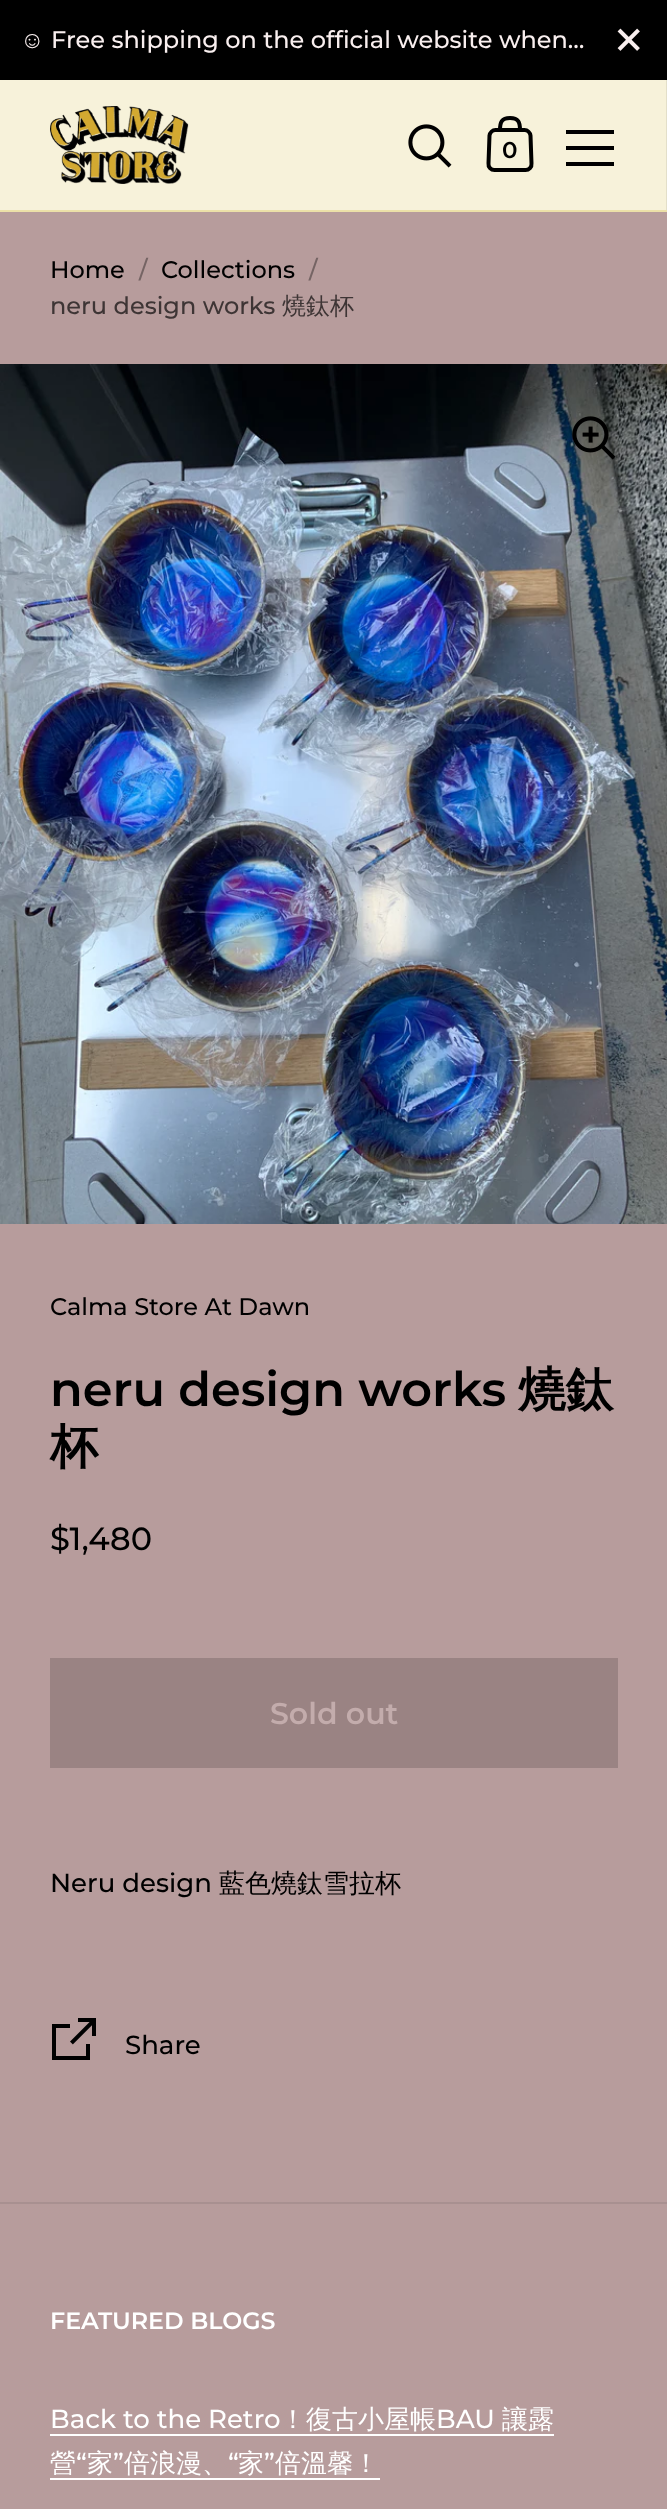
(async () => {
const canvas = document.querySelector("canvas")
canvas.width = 667
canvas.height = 2509
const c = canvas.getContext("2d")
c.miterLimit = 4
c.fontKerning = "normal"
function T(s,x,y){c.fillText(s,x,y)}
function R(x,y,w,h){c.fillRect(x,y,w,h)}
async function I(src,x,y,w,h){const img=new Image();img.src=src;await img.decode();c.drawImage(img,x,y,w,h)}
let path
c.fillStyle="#b79c9c"
R(0,0,667,2509)
c.fillStyle="#000"
R(0,0,667,80)
c.font="24px Liberation Sans"
c.fillStyle="#f9efef"
T("☺",20,48)
c.font="500 24px Montserrat"
T("Free shipping on the official website when…",51,48)
await I("1.png",617,28,23,23)
c.fillStyle="#ece0a8"
R(0,210,667,2)
c.fillStyle="#f7f2da"
R(0,80,666,130)
c.fillStyle="#e3dfc9"
R(666,80,1,130)
await I("2.png",50,106,139,78)
await I("3.png",408,124,44,44)
path = new Path2D("M500 130h-4.5c-3 0-5.5 2.5-6 5.5l-1 28c-.5 3.5 2.5 6.5 6 6.5h31c3.5 0 6.5-3 6-6.5l-1-28c-.5-3-3-5.5-6-5.5h-4.5m-20 0c0-7.5 1.5-12 10-12c8.5 0 10 4.5 10 12m-20 0h20")
c.strokeStyle="#000"
c.lineWidth=4
c.stroke(path)
c.font="600 23px Montserrat"
c.fillStyle="#000"
T("0",502,158)
R(566,130,48,4)
R(566,146,48,4)
R(566,162,48,4)
c.fillStyle="#a89090"
R(0,2202,667,2)
c.font="500 24px Montserrat"
c.fillStyle="#000"
T("Home",50,278)
c.fillStyle="#756464"
T("/",139,278)
c.fillStyle="#000"
T("Collections",161,278)
c.fillStyle="#756464"
T("/",309,278)
c.fillStyle="#3e3535"
T("neru design works",50,314)
c.font="500 24px WenQuanYi Zen Hei"
T("燒鈦杯",282,314)
await I("4.png",0,364,667,860)
await I("5.png",572,416,44,44)
c.font="500 24px Montserrat"
c.fillStyle="#000"
T("Calma Store At Dawn",50,1315)
c.font="600 47.75px Montserrat"
T("neru design works",50,1406)
c.font="bold 47.75px WenQuanYi Zen Hei"
T("燒鈦",518,1406)
T("杯",50,1463)
c.font="500 32px Montserrat"
T("$1,480",50,1550)
c.fillStyle="#9a8383"
R(50,1658,568,110)
c.font="600 30px Montserrat"
c.fillStyle="#c3acac"
T("Sold out",270,1724)
c.font="500 26px Montserrat"
c.fillStyle="#000"
T("Neru design",50,1892)
c.font="500 26px WenQuanYi Zen Hei"
T("藍色燒鈦雪拉杯",219,1892)
await I("6.png",52,2018,44,42)
c.font="500 26px Montserrat"
T("Share",125,2054)
c.font="600 23.75px Montserrat"
c.fillStyle="#fff"
T("FEATURED BLOGS",50,2329)
c.font="500 26px Montserrat"
T("Back to the Retro",50,2428)
c.font="500 26px WenQuanYi Zen Hei"
T("！復古小屋帳",280,2428)
R(50,2434,504,2)
c.font="500 26px Montserrat"
T("BAU",436,2428)
c.font="500 26px WenQuanYi Zen Hei"
T("讓露",502,2428)
T("營",50,2472)
R(50,2478,330,2)
c.font="500 26px Montserrat"
T("“",76,2472)
c.font="500 26px WenQuanYi Zen Hei"
T("家",87,2472)
c.font="500 26px Montserrat"
T("”",113,2472)
c.font="500 26px WenQuanYi Zen Hei"
T("倍浪漫、",124,2472)
c.font="500 26px Montserrat"
T("“",228,2472)
c.font="500 26px WenQuanYi Zen Hei"
T("家",238,2472)
c.font="500 26px Montserrat"
T("”",264,2472)
c.font="500 26px WenQuanYi Zen Hei"
T("倍溫馨！",275,2472)
})()
